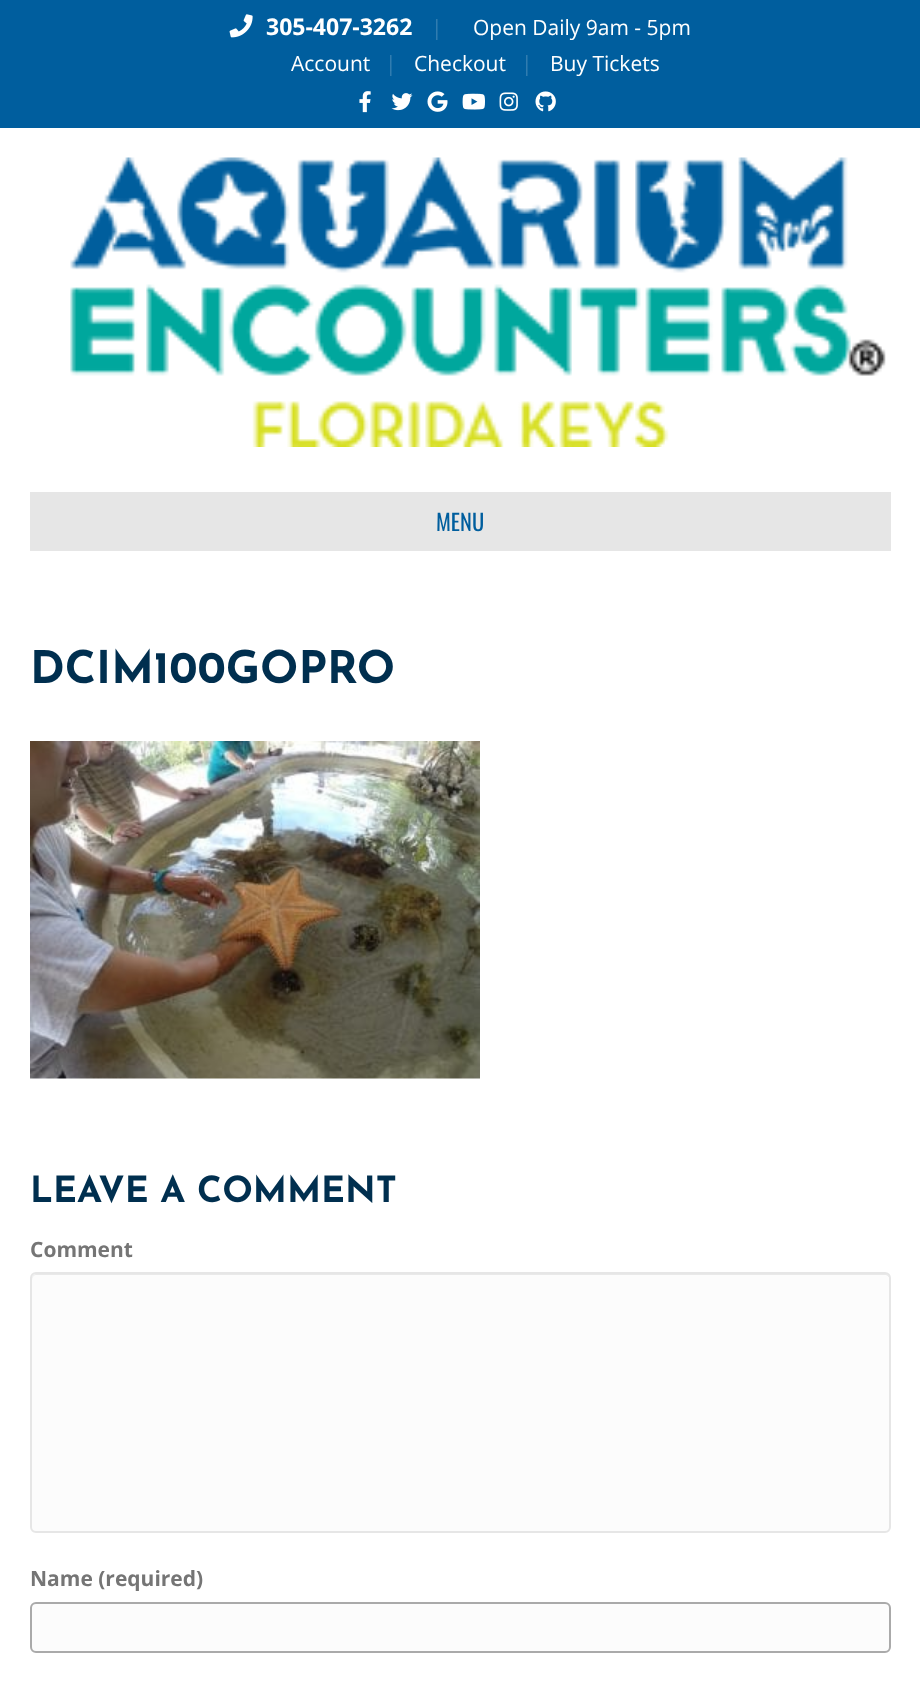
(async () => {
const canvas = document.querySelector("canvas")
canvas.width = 920
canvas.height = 1689
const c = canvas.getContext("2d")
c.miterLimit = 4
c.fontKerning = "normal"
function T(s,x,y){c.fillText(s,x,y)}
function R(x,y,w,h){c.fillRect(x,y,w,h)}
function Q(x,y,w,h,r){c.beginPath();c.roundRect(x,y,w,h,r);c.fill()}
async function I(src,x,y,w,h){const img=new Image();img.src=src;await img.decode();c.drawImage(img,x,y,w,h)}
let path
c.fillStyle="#005e9e"
R(0,0,920,1689)
await I("1.png",229,14,24,24)
c.font="bold 23px Open Sans"
c.fillStyle="#fff"
T("305-407-3262",266,35)
c.font="21px Open Sans"
c.fillStyle="#337eb1"
T("|",431,35)
c.fillStyle="#fff"
T("Open Daily 9am - 5pm",473,35)
T("Account",291,71)
c.fillStyle="#337eb1"
T("|",385,71)
c.fillStyle="#fff"
T("Checkout",414,71)
c.fillStyle="#337eb1"
T("|",521,71)
c.fillStyle="#fff"
T("Buy Tickets",550,71)
await I("2.png",359,91,12,22)
await I("3.png",391,93,22,18)
await I("4.png",427,91,21,21)
await I("5.png",462,93,23,17)
await I("6.png",499,92,19,19)
await I("7.png",535,91,21,21)
R(0,128,920,1561)
await I("8.png",70,157,816,290)
c.fillStyle="#e6e6e6"
R(30,492,861,59)
c.font="22.5px Oswald"
c.fillStyle="#005e9e"
T("MENU",436,531)
c.font="100 45px Josefin Sans"
c.fillStyle="#002f4f"
T("DCIM100GOPRO",30,683)
await I("9.png",30,741,450,338)
c.font="100 36px Josefin Sans"
T("LEAVE A COMMENT",30,1202)
c.font="bold 21px Open Sans"
c.fillStyle="#757575"
T("Comment",30,1257)
c.fillStyle="#fcfcfc"
Q(30,1272,861,261,6)
c.fillStyle="#e9e9e9"
path = new Path2D("M36 1275h849c2 0 5 2 5 5v-1c0-3-2-5-5-5h-848c-3 0-5 2-5 5v1c0-3 2-5 4-5z")
c.fill(path)
c.beginPath()
c.roundRect(31,1273,859,259,5)
c.strokeStyle="#e6e6e6"
c.lineWidth=2
c.stroke()
c.fillStyle="#757575"
T("Name (required)",30,1586)
c.fillStyle="#fcfcfc"
c.beginPath()
c.roundRect(31,1603,859,49,5)
c.fill()
c.strokeStyle="#aaa"
c.stroke()
})()
